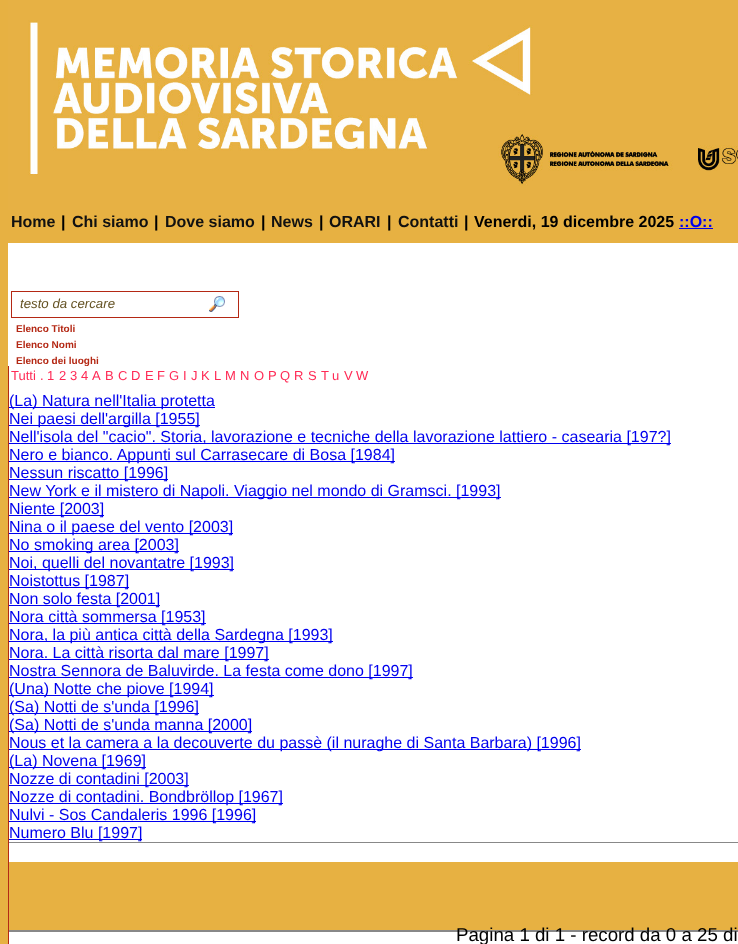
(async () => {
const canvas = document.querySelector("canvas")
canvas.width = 738
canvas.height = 944
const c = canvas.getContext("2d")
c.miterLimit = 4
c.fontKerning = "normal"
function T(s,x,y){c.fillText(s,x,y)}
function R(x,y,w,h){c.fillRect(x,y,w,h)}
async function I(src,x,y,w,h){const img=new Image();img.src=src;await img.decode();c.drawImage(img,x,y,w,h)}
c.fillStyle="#e7b142"
R(0,0,738,944)
await I("1.png",8,0,730,210)
c.font="bold 16px Liberation Sans"
c.fillStyle="#111"
T("Home",11,227)
c.fillStyle="#000"
T("|",61,227)
c.fillStyle="#111"
T("Chi siamo",72,227)
c.fillStyle="#000"
T("|",154,227)
c.fillStyle="#111"
T("Dove siamo",165,227)
c.fillStyle="#000"
T("|",261,227)
c.fillStyle="#111"
T("News",271,227)
c.fillStyle="#000"
T("|",319,227)
c.fillStyle="#111"
T("ORARI",329,227)
c.fillStyle="#000"
T("|",387,227)
c.fillStyle="#111"
T("Contatti",398,227)
c.fillStyle="#000"
T("|",464,227)
T("Venerdi, 19 dicembre 2025",474,227)
c.fillStyle="#00e"
T("::O::",679,227)
R(679,228,34,1)
c.fillStyle="#fff"
R(8,243,730,123)
await I("2.png",209,296,16,16)
c.strokeStyle="#b42814"
c.strokeRect(11.5,291.5,227,26)
c.font="italic 13.25px Liberation Sans"
c.fillStyle="#635122"
T("testo da cercare",20,308)
c.font="bold 10px Liberation Sans"
c.fillStyle="#b42814"
T("Elenco Titoli",16,332)
T("Elenco Nomi",16,348)
T("Elenco dei luoghi",16,364)
c.fillStyle="#fff"
R(9,366,729,578)
c.fillStyle="#b42814"
R(8,366,1,578)
c.font="13px Liberation Sans"
c.fillStyle="#ff2a55"
T("Tutti",11,380)
T(".",40,380)
T("1",47,380)
T("2",59,380)
T("3",70,380)
T("4",81,380)
T("A",92,380)
T("B",105,380)
T("C",118,380)
T("D",131,380)
T("E",145,380)
T("F",157,380)
T("G",169,380)
T("I",183,380)
T("J",191,380)
T("K",201,380)
T("L",214,380)
T("M",225,380)
T("N",240,380)
T("O",254,380)
T("P",268,380)
T("Q",280,380)
T("R",294,380)
T("S",308,380)
T("T",321,380)
T("u",332,380)
T("V",344,380)
T("W",356,380)
c.fillStyle="#00e"
R(9,407,206,1)
c.font="16px Liberation Sans"
T("(La) Natura nell'Italia protetta",9,406)
R(9,425,191,1)
T("Nei paesi dell'argilla [1955]",9,424)
R(9,443,662,1)
T("Nell'isola del \"cacio\". Storia, lavorazione e tecniche della lavorazione lattiero - casearia [197?]",9,442)
R(9,461,386,1)
T("Nero e bianco. Appunti sul Carrasecare di Bosa [1984]",9,460)
R(9,479,159,1)
T("Nessun riscatto [1996]",9,478)
R(9,497,492,1)
T("New York e il mistero di Napoli. Viaggio nel mondo di Gramsci. [1993]",9,496)
R(9,515,95,1)
T("Niente [2003]",9,514)
R(9,533,224,1)
T("Nina o il paese del vento [2003]",9,532)
R(9,551,170,1)
T("No smoking area [2003]",9,550)
R(9,569,225,1)
T("Noi, quelli del novantatre [1993]",9,568)
R(9,587,120,1)
T("Noistottus [1987]",9,586)
R(9,605,151,1)
T("Non solo festa [2001]",9,604)
R(9,623,197,1)
T("Nora città sommersa [1953]",9,622)
R(9,641,324,1)
T("Nora, la più antica città della Sardegna [1993]",9,640)
R(9,659,260,1)
T("Nora. La città risorta dal mare [1997]",9,658)
R(9,677,404,1)
T("Nostra Sennora de Baluvirde. La festa come dono [1997]",9,676)
R(9,695,205,1)
T("(Una) Notte che piove [1994]",9,694)
R(9,713,190,1)
T("(Sa) Notti de s'unda [1996]",9,712)
R(9,731,243,1)
T("(Sa) Notti de s'unda manna [2000]",9,730)
R(9,749,572,1)
T("Nous et la camera a la decouverte du passè (il nuraghe di Santa Barbara) [1996]",9,748)
R(9,767,137,1)
T("(La) Novena [1969]",9,766)
R(9,785,180,1)
T("Nozze di contadini [2003]",9,784)
c.fillStyle="#888"
R(9,930,729,2)
c.fillStyle="#00e"
R(9,803,274,1)
T("Nozze di contadini. Bondbröllop [1967]",9,802)
R(9,821,247,1)
T("Nulvi - Sos Candaleris 1996 [1996]",9,820)
c.fillStyle="#888"
R(9,842,729,1)
c.fillStyle="#00e"
R(9,839,133,1)
T("Numero Blu [1997]",9,838)
c.fillStyle="#e7b142"
R(9,862,729,68)
c.font="18.7px Liberation Sans"
c.fillStyle="#000"
T("Pagina 1 di 1 - record da 0 a 25 di",456,941)
})()
